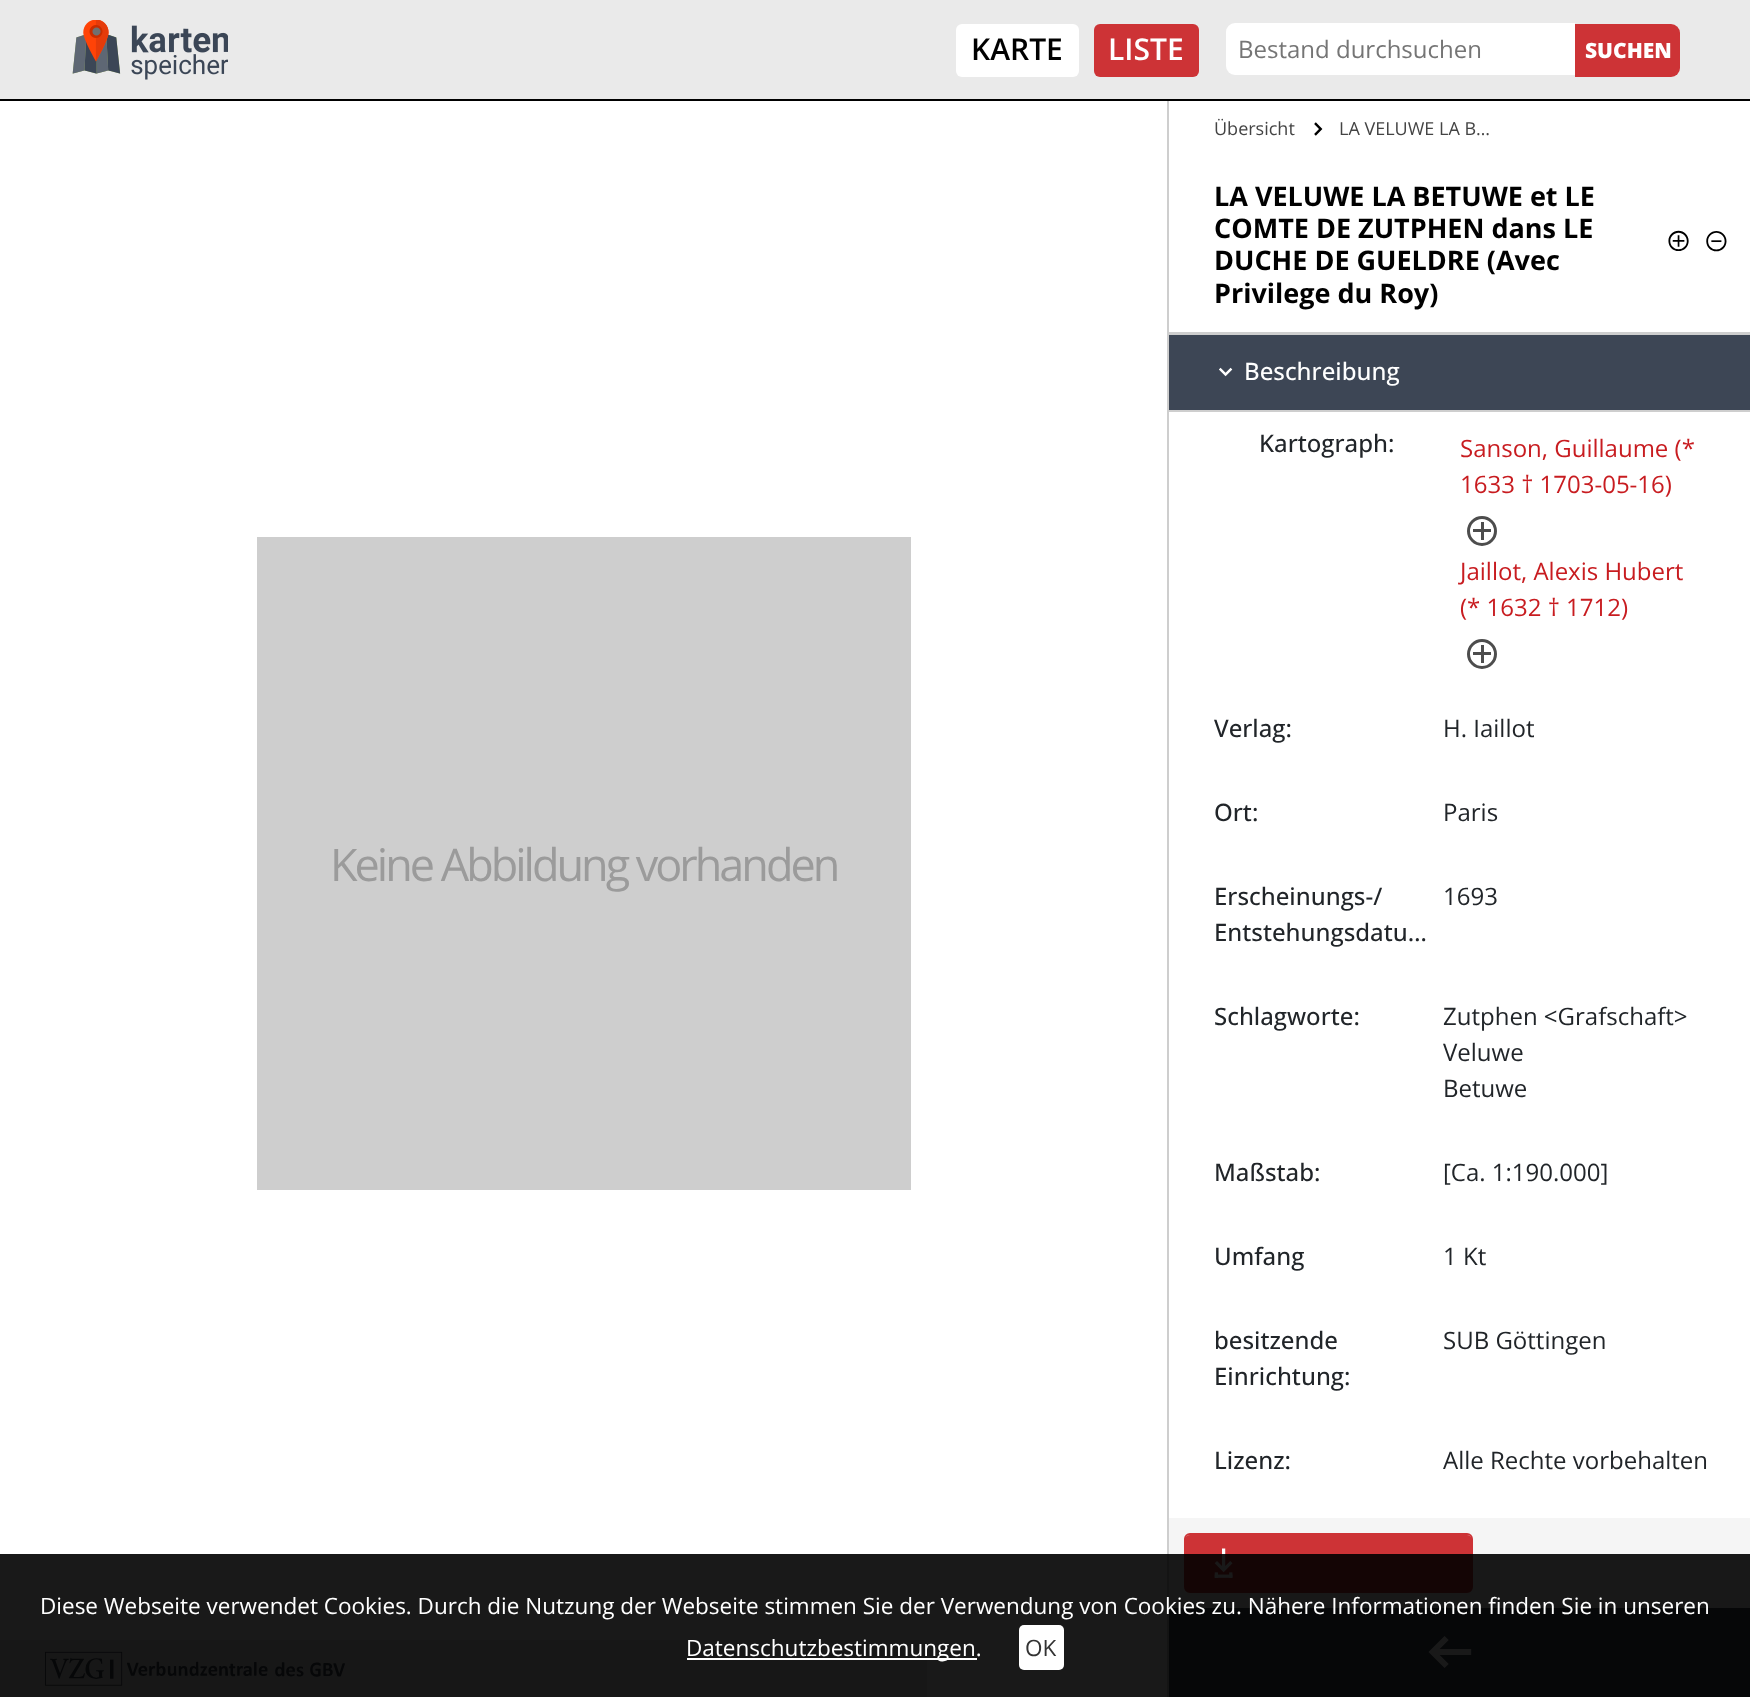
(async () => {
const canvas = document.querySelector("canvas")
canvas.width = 1750
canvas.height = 1697
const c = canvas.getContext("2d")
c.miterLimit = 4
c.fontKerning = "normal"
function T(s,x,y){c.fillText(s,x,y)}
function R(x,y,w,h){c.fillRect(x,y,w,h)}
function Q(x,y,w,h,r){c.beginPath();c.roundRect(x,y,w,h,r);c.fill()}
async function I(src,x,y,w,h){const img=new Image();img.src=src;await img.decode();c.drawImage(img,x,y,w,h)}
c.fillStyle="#fff"
R(0,0,1750,1697)
c.fillStyle="#eaeaea"
R(0,0,1750,99)
c.fillStyle="#000"
R(0,99,1750,2)
await I("1.png",72,20,156,60)
c.fillStyle="#fff"
Q(956,24,123,53,6)
c.font="600 30px Open Sans"
c.fillStyle="#000"
T("KARTE",971,60)
c.fillStyle="#cd3336"
Q(1094,24,105,53,6)
c.fillStyle="#fff"
T("LISTE",1108,60)
c.beginPath()
c.roundRect(1226,23,349,52,[9,0,0,9])
c.fill()
c.font="24px Open Sans"
c.fillStyle="#757575"
T("Bestand durchsuchen",1238,58)
c.fillStyle="#cd3336"
c.beginPath()
c.roundRect(1575,24,105,53,[0,9,9,0])
c.fill()
c.font="800 21px Open Sans"
c.fillStyle="#fff"
T("SUCHEN",1585,58)
c.fillStyle="#cecece"
R(257,537,654,653)
c.letterSpacing="-3px"
c.font="45px Open Sans"
c.fillStyle="#9b9b9b"
T("Keine Abbildung vorhanden",330,881)
c.fillStyle="#f5f5f5"
R(1169,1518,581,90)
c.fillStyle="#cecece"
R(1167,101,2,1596)
c.letterSpacing="0px"
c.font="18px Open Sans"
c.fillStyle="#444"
T("Übersicht",1214,135)
await I("2.png",1314,122,9,14)
T("LA VELUWE LA B…",1339,135)
c.fillStyle="#cecece"
R(1169,332,581,3)
c.font="bold 27px Open Sans"
c.fillStyle="#000"
T("LA VELUWE LA BETUWE et LE",1214,206)
T("COMTE DE ZUTPHEN dans LE",1214,238)
await I("3.png",1668,230,21,21)
await I("4.png",1706,231,21,21)
T("DUCHE DE GUELDRE (Avec",1214,270)
T("Privilege du Roy)",1214,303)
c.fillStyle="#3d4655"
R(1169,335,581,75)
c.fillStyle="#cecece"
R(1169,410,581,2)
await I("5.png",1219,367,14,10)
c.font="500 24px Open Sans"
c.fillStyle="#fff"
T("Beschreibung",1244,380)
c.fillStyle="#212529"
T("Kartograph:",1259,452)
c.font="24px Open Sans"
c.fillStyle="#c81c20"
T("Sanson, Guillaume (*",1460,457)
T("1633 † 1703-05-16)",1460,493)
c.beginPath()
c.arc(1482,531,13.5,0,7)
c.strokeStyle="#4d4d4d"
c.lineWidth=3
c.stroke()
c.fillStyle="#4d4d4d"
R(1481,522,3,18)
R(1473,529,18,3)
c.fillStyle="#c81c20"
T("Jaillot, Alexis Hubert",1460,580)
T("(* 1632 † 1712)",1460,616)
c.beginPath()
c.arc(1482,654,13.5,0,7)
c.stroke()
c.fillStyle="#4d4d4d"
R(1481,645,3,18)
R(1473,652,18,3)
c.font="500 24px Open Sans"
c.fillStyle="#212529"
T("Verlag:",1214,737)
c.font="24px Open Sans"
T("H. Iaillot",1443,737)
c.font="500 24px Open Sans"
T("Ort:",1214,821)
c.font="24px Open Sans"
T("Paris",1443,821)
c.font="500 24px Open Sans"
T("Erscheinungs-/",1214,905)
T("Entstehungsdatu…",1214,941)
c.font="24px Open Sans"
T("1693",1443,905)
c.font="500 24px Open Sans"
T("Schlagworte:",1214,1025)
c.font="24px Open Sans"
T("Zutphen <Grafschaft>",1443,1025)
T("Veluwe",1443,1061)
T("Betuwe",1443,1097)
c.font="500 24px Open Sans"
T("Maßstab:",1214,1181)
c.font="24px Open Sans"
T("[Ca. 1:190.000]",1443,1181)
c.font="500 24px Open Sans"
T("Umfang",1214,1265)
c.font="24px Open Sans"
T("1 Kt",1443,1265)
c.font="500 24px Open Sans"
T("besitzende",1214,1349)
T("Einrichtung:",1214,1385)
c.font="24px Open Sans"
T("SUB Göttingen",1443,1349)
c.font="500 24px Open Sans"
T("Lizenz:",1214,1469)
c.font="24px Open Sans"
T("Alle Rechte vorbehalten",1443,1469)
c.beginPath()
c.roundRect(1185,1534,287,58,5)
c.strokeStyle="#cd3336"
c.lineWidth=2
c.stroke()
c.fillStyle="#cd3336"
Q(1185,1535,287,57,5)
await I("6.png",1214,1548,19,30)
c.fillStyle="#3d4655"
R(1169,1608,581,89)
await I("7.png",1428,1636,44,32)
c.fillStyle="#eaeaea"
R(0,1640,927,57)
await I("8.png",45,1651,300,35)
c.fillStyle="#000000e6"
R(0,1554,1750,143)
c.font="22.5px Open Sans"
c.fillStyle="#fff"
T("Diese Webseite verwendet Cookies. Durch die Nutzung der Webseite stimmen Sie der Verwendung von Cookies zu. Nähere Informationen finden Sie in unseren",40,1614)
R(687,1658,290,2)
T("Datenschutzbestimmungen.",686,1656)
Q(1019,1625,45,45,5)
c.fillStyle="#333"
T("OK",1025,1656)
})()
